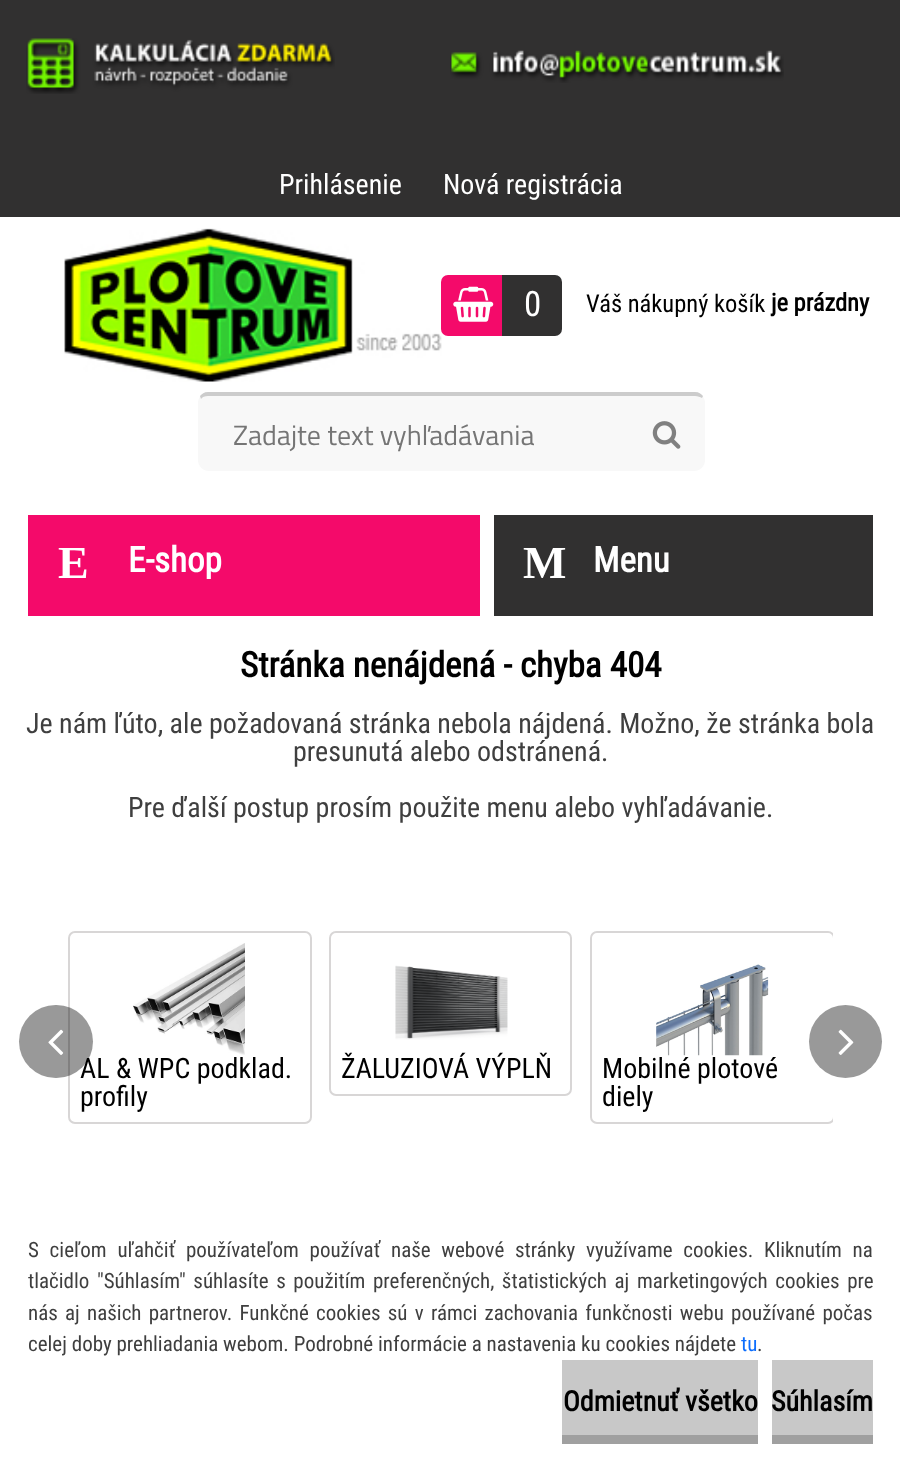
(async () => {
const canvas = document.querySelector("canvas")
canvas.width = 900
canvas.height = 1471
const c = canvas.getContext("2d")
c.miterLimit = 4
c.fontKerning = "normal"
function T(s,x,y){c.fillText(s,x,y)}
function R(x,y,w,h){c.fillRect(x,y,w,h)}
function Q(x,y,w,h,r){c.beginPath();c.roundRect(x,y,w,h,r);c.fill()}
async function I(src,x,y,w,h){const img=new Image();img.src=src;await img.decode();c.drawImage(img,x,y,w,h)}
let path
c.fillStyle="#fff"
R(0,0,900,1471)
c.fillStyle="#313030"
R(0,0,900,217)
await I("1.png",26,38,309,56)
await I("2.png",450,50,334,33)
c.font="28px Roboto Condensed"
c.fillStyle="#fff"
T("Prihlásenie",279,194)
T("Nová registrácia",443,194)
await I("3.png",64,228,378,154)
c.fillStyle="#f40a6a"
c.beginPath()
c.roundRect(441,275,61,61,[7,0,0,7])
c.fill()
await I("4.png",453,286,41,36)
c.fillStyle="#313030"
c.beginPath()
c.roundRect(502,275,60,61,[0,7,7,0])
c.fill()
c.font="35px Roboto Condensed"
c.fillStyle="#fff"
T("0",524,316)
c.font="24.5px Roboto Condensed"
c.fillStyle="#000"
T("Váš nákupný košík",586,312)
c.font="bold 24.5px Roboto Condensed"
T("je prázdny",771,311)
c.fillStyle="#f8f8f8"
Q(198,392,507,79,11)
c.fillStyle="#ccc"
path = new Path2D("M208 392c-4 0-6 2-8 4l1 3c1-2 4-3 7-3h487c3 0 5 1 7 2l1-2c-2-2-4-4-8-4z")
c.fill(path)
c.font="28px Titillium Web"
c.fillStyle="#757575"
T("Zadajte text vyhľadávania",233,445)
await I("5.png",652,421,29,28)
c.fillStyle="#f40a6a"
R(28,515,452,101)
c.font="bold 46px Liberation Serif"
c.fillStyle="#fff"
T("E",58,578)
c.font="bold 35px Roboto Condensed"
T("E-shop",128,572)
c.fillStyle="#313030"
R(494,515,379,101)
c.font="bold 46px Liberation Serif"
c.fillStyle="#fff"
T("M",523,578)
c.font="bold 35px Roboto Condensed"
T("Menu",593,572)
c.fillStyle="#000"
T("Stránka nenájdená - chyba 404",240,677)
c.font="28px Roboto Condensed"
c.fillStyle="#3f3f3f"
T("Je nám ľúto, ale požadovaná stránka nebola nájdená. Možno, že stránka bola",26,733)
T("presunutá alebo odstránená.",293,761)
T("Pre ďalší postup prosím použite menu alebo vyhľadávanie.",128,817)
c.beginPath()
c.roundRect(69,932,242,191,6)
c.strokeStyle="#d8d6d6"
c.lineWidth=2
c.stroke()
c.fillStyle="#000"
T("AL & WPC podklad.",80,1078)
c.fillStyle="#00000066"
Q(19,1005,74,73,36.5)
await I("6.png",48,1029,16,26)
c.save()
c.beginPath()
c.rect(68,896,765,291)
c.clip()
c.beginPath()
c.roundRect(591,932,243,191,6)
c.stroke()
c.restore()
c.fillStyle="#999"
c.beginPath()
c.arc(845.5,1041.5,36.5,0,7)
c.fill()
await I("7.png",838,1029,16,26)
await I("8.png",133,943,112,112)
c.fillStyle="#000"
T("profily",80,1106)
c.beginPath()
c.roundRect(330,932,241,163,6)
c.stroke()
await I("9.png",395,965,113,75)
T("ŽALUZIOVÁ VÝPLŇ",341,1078)
await I("10.png",656,964,113,92)
T("Mobilné plotové",602,1078)
T("diely",602,1106)
c.wordSpacing="5.9px"
c.font="21px Roboto Condensed"
c.fillStyle="#3f3f3f"
T("S cieľom uľahčiť používateľom používať naše webové stránky využívame cookies. Kliknutím na",28,1257)
c.wordSpacing="2.75px"
T("tlačidlo \"Súhlasím\" súhlasíte s použitím preferenčných, štatistických aj marketingových cookies pre",28,1288)
c.wordSpacing="2.4px"
T("nás aj našich partnerov. Funkčné cookies sú v rámci zachovania funkčnosti webu používané počas",28,1320)
c.wordSpacing="0px"
T("celej doby prehliadania webom. Podrobné informácie a nastavenia ku cookies nájdete",28,1351)
c.fillStyle="#0d6efd"
T("tu",741,1351)
c.fillStyle="#3f3f3f"
T(".",757,1351)
c.fillStyle="#c8c8c8"
R(562,1360,196,75)
c.fillStyle="#a0a0a0"
R(562,1435,196,9)
c.font="bold 28px Roboto Condensed"
c.fillStyle="#000"
T("Odmietnuť všetko",563,1411)
c.fillStyle="#c8c8c8"
R(772,1360,101,75)
c.fillStyle="#a0a0a0"
R(772,1435,101,9)
c.fillStyle="#000"
T("Súhlasím",771,1411)
})()
